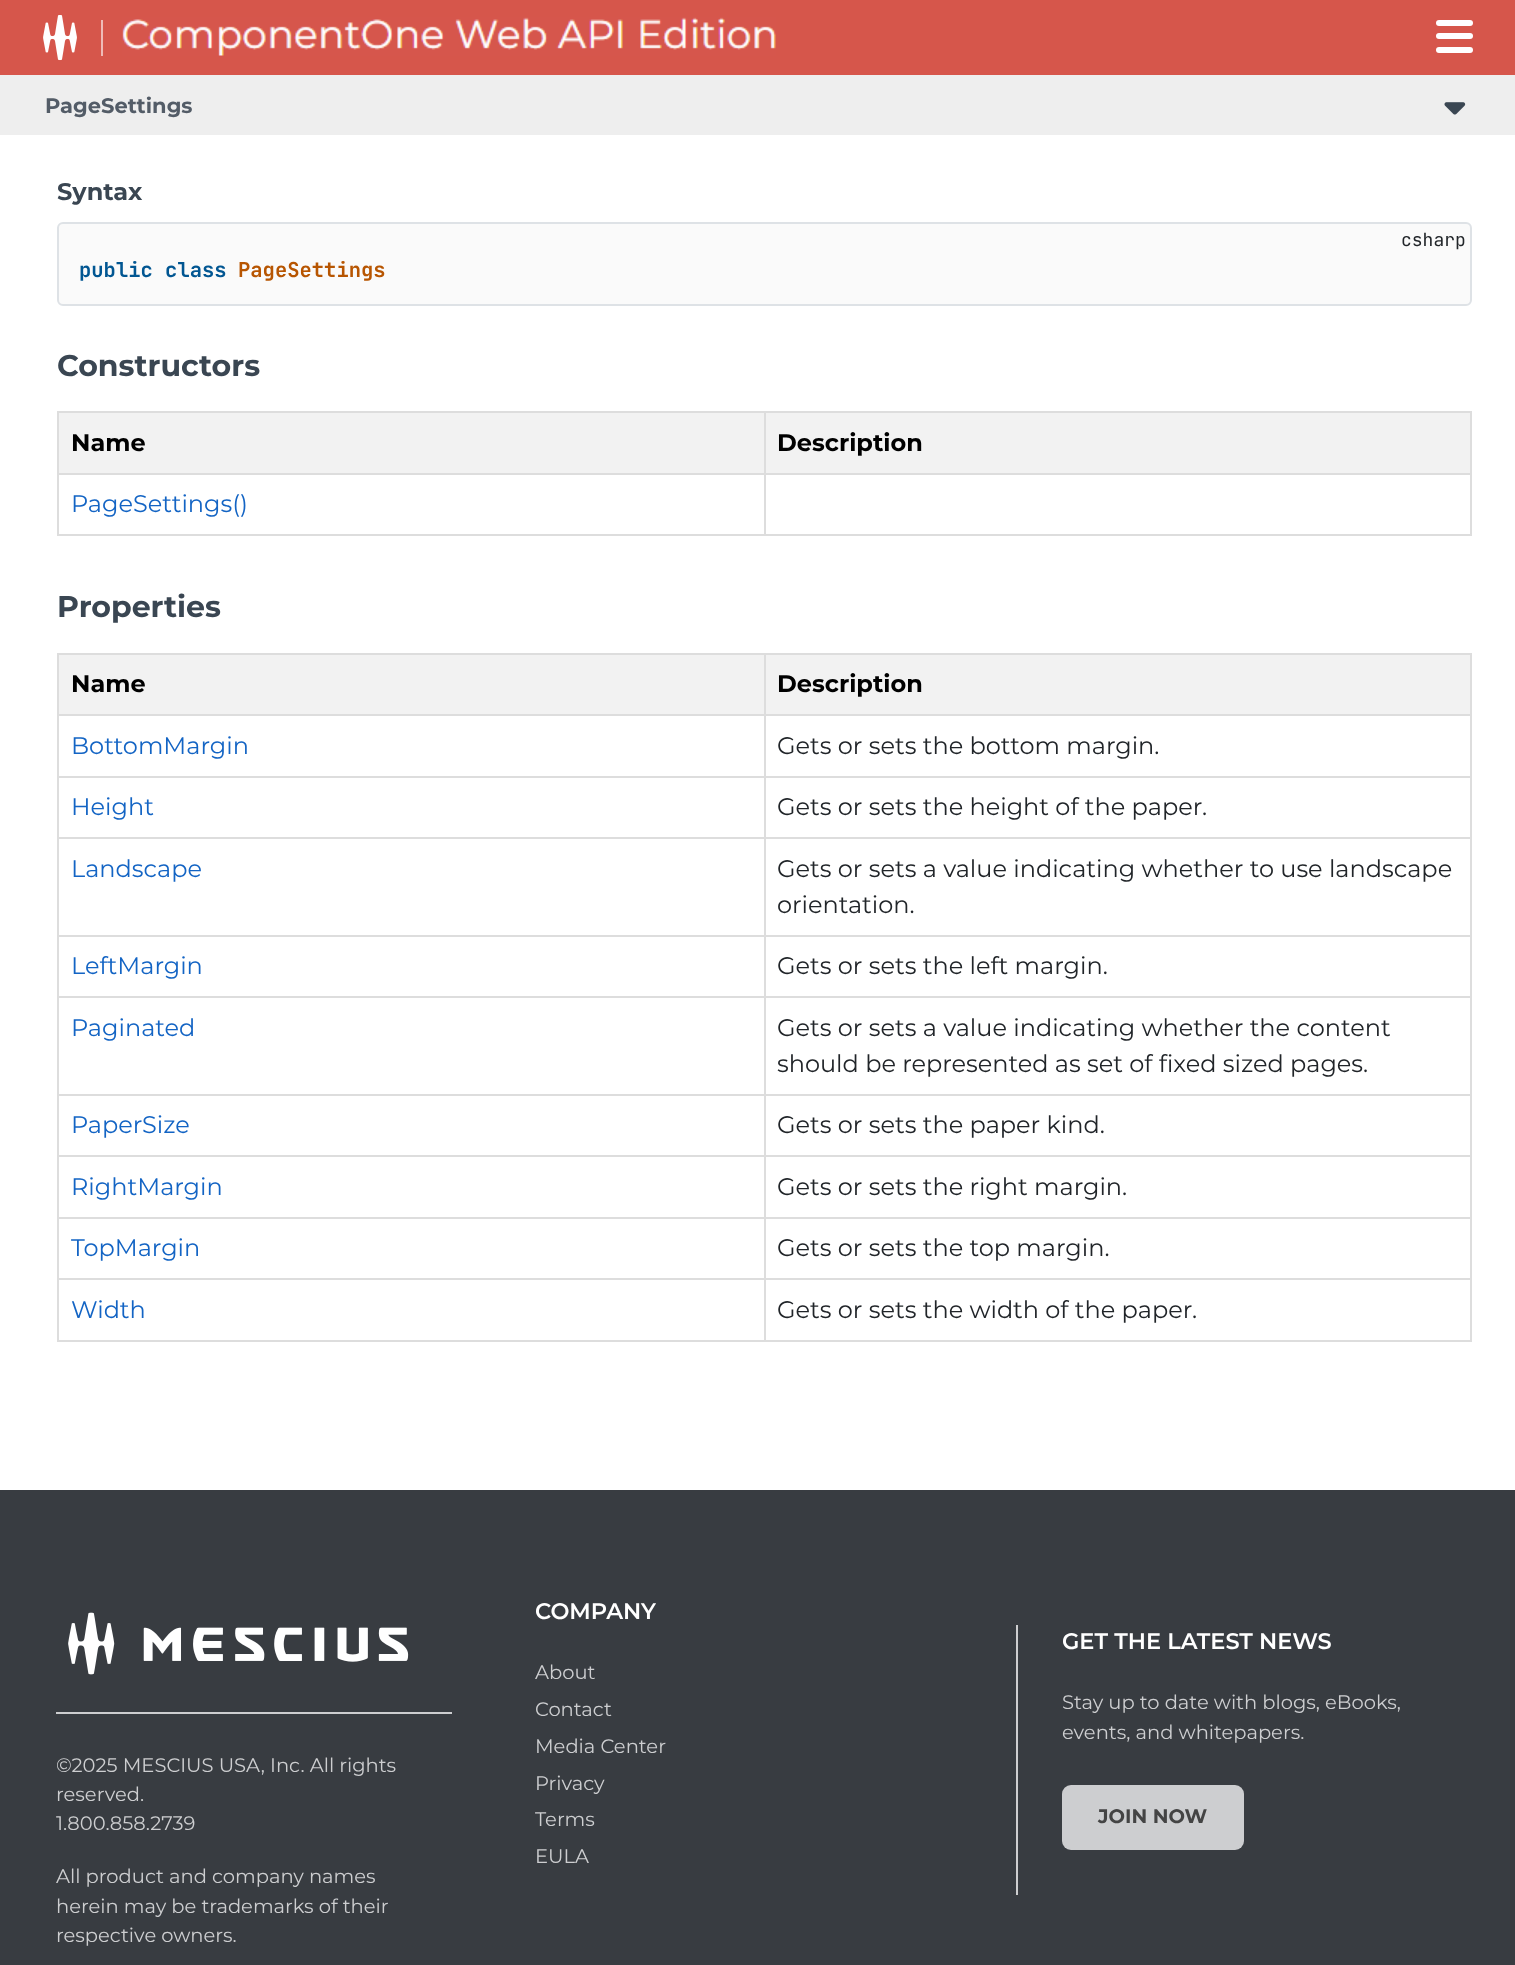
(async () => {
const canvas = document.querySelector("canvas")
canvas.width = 1515
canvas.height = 1965
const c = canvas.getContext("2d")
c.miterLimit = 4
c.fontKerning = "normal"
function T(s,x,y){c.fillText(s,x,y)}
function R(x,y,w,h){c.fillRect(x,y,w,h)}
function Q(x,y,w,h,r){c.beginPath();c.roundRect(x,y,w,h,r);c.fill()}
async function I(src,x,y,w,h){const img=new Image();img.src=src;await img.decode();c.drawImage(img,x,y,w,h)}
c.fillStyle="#fff"
R(0,0,1515,1965)
c.fillStyle="#d6564b"
R(0,0,1515,75)
await I("1.png",43,15,34,46)
c.fillStyle="#efbbb7"
R(101,20,2,36)
await I("2.png",122,17,654,39)
c.fillStyle="#fff"
Q(1436,20,37,6,3)
Q(1436,33,37,6,3)
Q(1436,47,37,6,3)
c.fillStyle="#eee"
R(0,75,1515,60)
c.font="bold 21px Montserrat"
c.fillStyle="#535c67"
T("PageSettings",45,113)
await I("3.png",1444,102,22,13)
c.font="bold 24px Montserrat"
c.fillStyle="#3a4652"
T("Syntax",57,200)
c.fillStyle="#fafafa"
c.beginPath()
c.roundRect(58,223,1413,82,5)
c.fill()
c.strokeStyle="#dee2e6"
c.lineWidth=2
c.stroke()
c.font="18px JetBrains Mono"
c.fillStyle="#212529"
T("csharp",1401,246)
c.font="bold 20.5px JetBrains Mono"
c.fillStyle="#015692"
T("public class",79,277)
c.fillStyle="#b75501"
T("PageSettings",238,277)
c.font="bold 30px Montserrat"
c.fillStyle="#3a4652"
T("Constructors",57,376)
c.fillStyle="#f2f2f2"
R(59,413,705,60)
c.fillStyle="#ddd"
R(764,411,708,2)
R(764,473,708,2)
R(1470,473,2,63)
R(764,534,708,2)
R(764,473,2,63)
R(57,473,708,2)
R(764,411,2,63)
R(57,411,708,2)
R(57,534,708,2)
R(57,473,2,63)
R(57,411,2,63)
c.font="bold 24px Montserrat"
c.fillStyle="#000"
T("Name",71,451)
c.fillStyle="#f2f2f2"
R(766,413,704,60)
c.fillStyle="#ddd"
R(1470,411,2,63)
c.fillStyle="#000"
T("Description",777,451)
c.font="24px Montserrat"
c.fillStyle="#1364c4"
T("PageSettings()",71,512)
c.font="bold 30px Montserrat"
c.fillStyle="#3a4652"
T("Properties",57,617)
c.fillStyle="#f2f2f2"
R(59,655,705,59)
c.fillStyle="#ddd"
R(764,653,708,2)
R(764,714,708,2)
R(764,776,708,2)
R(764,837,708,2)
R(764,935,708,2)
R(764,996,708,2)
R(764,1094,708,2)
R(764,1155,708,2)
R(764,1217,708,2)
R(764,1278,708,2)
R(1470,1278,2,63)
R(764,1340,708,2)
R(764,1278,2,63)
R(57,1278,708,2)
R(764,1217,2,63)
R(57,1217,708,2)
R(764,1155,2,63)
R(57,1155,708,2)
R(764,1094,2,63)
R(57,1094,708,2)
R(764,996,2,99)
R(57,996,708,2)
R(764,935,2,63)
R(57,935,708,2)
R(764,837,2,99)
R(57,837,708,2)
R(764,776,2,63)
R(57,776,708,2)
R(764,714,2,63)
R(57,714,708,2)
R(764,653,2,63)
R(57,653,708,2)
R(57,1340,708,2)
R(57,1278,2,63)
R(57,1217,2,63)
R(57,1155,2,63)
R(57,1094,2,63)
R(57,996,2,99)
R(57,935,2,63)
R(57,837,2,99)
R(57,776,2,63)
R(57,714,2,63)
R(57,653,2,63)
c.font="bold 24px Montserrat"
c.fillStyle="#000"
T("Name",71,692)
c.fillStyle="#f2f2f2"
R(766,655,704,59)
c.fillStyle="#ddd"
R(1470,1217,2,63)
R(1470,1155,2,63)
R(1470,1094,2,63)
R(1470,996,2,99)
R(1470,935,2,63)
R(1470,837,2,99)
R(1470,776,2,63)
R(1470,714,2,63)
R(1470,653,2,63)
c.fillStyle="#000"
T("Description",777,692)
c.font="24px Montserrat"
c.fillStyle="#1364c4"
T("BottomMargin",71,754)
c.fillStyle="#212529"
T("Gets or sets the bottom margin.",777,754)
c.fillStyle="#1364c4"
T("Height",71,815)
c.fillStyle="#212529"
T("Gets or sets the height of the paper.",777,815)
c.fillStyle="#1364c4"
T("Landscape",71,877)
c.fillStyle="#212529"
T("Gets or sets a value indicating whether to use landscape",777,877)
T("orientation.",777,913)
c.fillStyle="#1364c4"
T("LeftMargin",71,974)
c.fillStyle="#212529"
T("Gets or sets the left margin.",777,974)
c.fillStyle="#1364c4"
T("Paginated",71,1036)
c.fillStyle="#212529"
T("Gets or sets a value indicating whether the content",777,1036)
T("should be represented as set of fixed sized pages.",777,1072)
c.fillStyle="#1364c4"
T("PaperSize",71,1133)
c.fillStyle="#212529"
T("Gets or sets the paper kind.",777,1133)
c.fillStyle="#1364c4"
T("RightMargin",71,1195)
c.fillStyle="#212529"
T("Gets or sets the right margin.",777,1195)
c.fillStyle="#1364c4"
T("TopMargin",71,1256)
c.fillStyle="#212529"
T("Gets or sets the top margin.",777,1256)
c.fillStyle="#1364c4"
T("Width",71,1318)
c.fillStyle="#212529"
T("Gets or sets the width of the paper.",777,1318)
c.fillStyle="#383c41"
R(0,1490,1515,475)
c.font="600 22.5px Montserrat"
c.fillStyle="#fff"
T("COMPANY",535,1619)
c.font="19.5px Montserrat"
c.fillStyle="#cdced0"
T("About",535,1679)
T("Contact",535,1716)
T("Media Center",535,1753)
T("Privacy",535,1790)
T("Terms",535,1826)
T("EULA",535,1863)
R(1016,1625,2,270)
c.font="600 22.5px Montserrat"
c.fillStyle="#fff"
T("GET THE LATEST NEWS",1062,1649)
c.font="19.5px Montserrat"
c.fillStyle="#cdced0"
T("Stay up to date with blogs, eBooks,",1062,1709)
T("events, and whitepapers.",1062,1739)
Q(1062,1785,182,65,9)
c.font="bold 19.5px Montserrat"
c.fillStyle="#444"
T("JOIN NOW",1098,1823)
c.fillStyle="#cdced0"
R(56,1712,396,2)
await I("4.png",68,1612,341,63)
c.font="19.5px Montserrat"
T("©2025 MESCIUS USA, Inc. All rights",56,1772)
T("reserved.",56,1801)
T("1.800.858.2739",56,1830)
T("All product and company names",56,1883)
T("herein may be trademarks of their",56,1913)
T("respective owners.",56,1942)
})()
